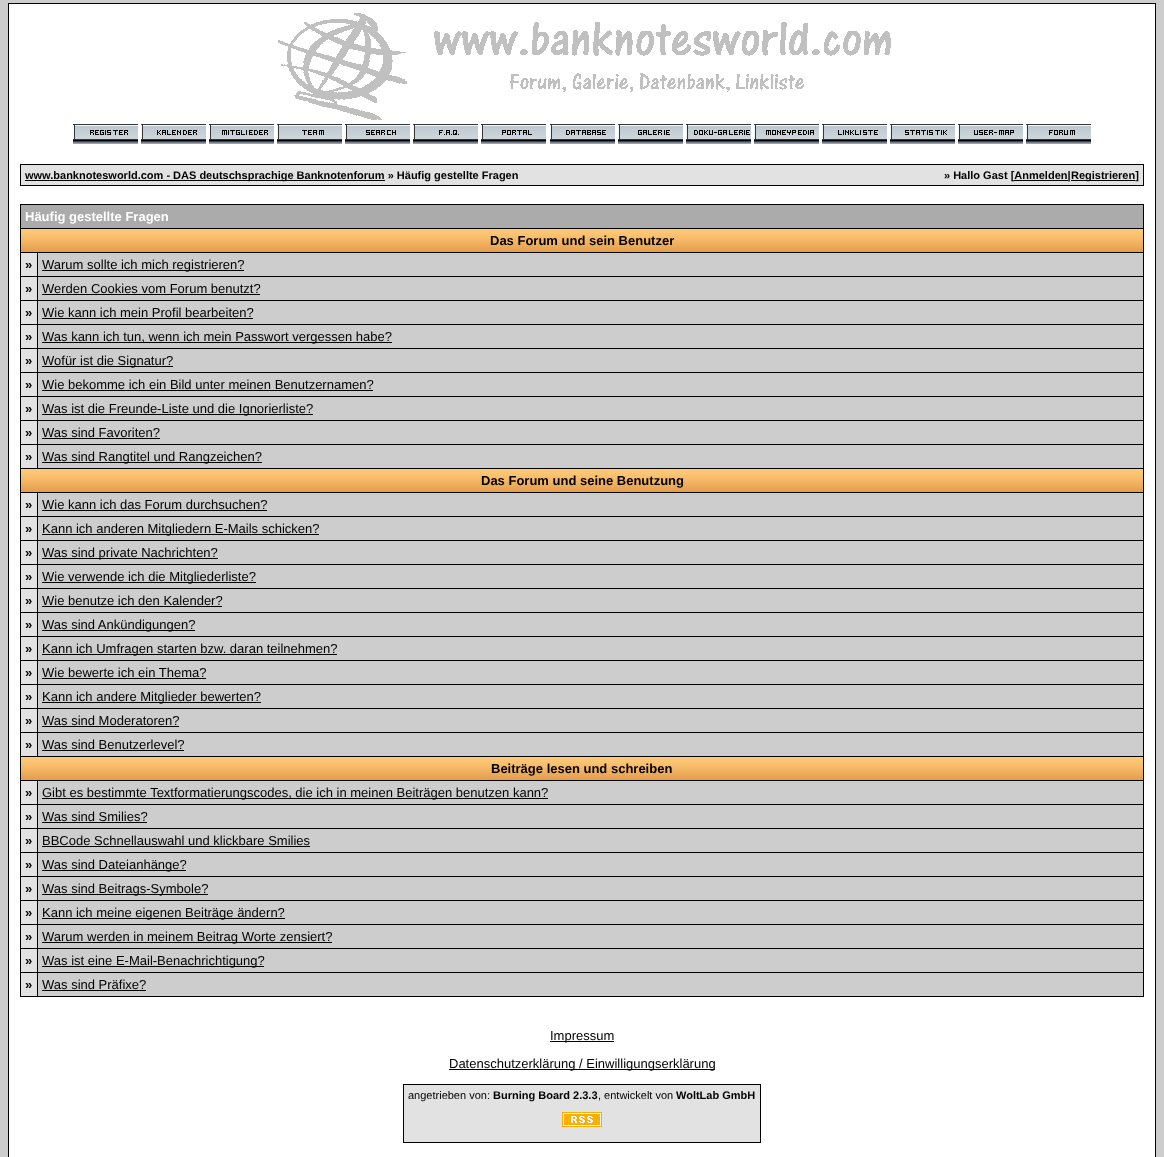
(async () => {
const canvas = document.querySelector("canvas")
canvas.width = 1164
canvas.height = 1157
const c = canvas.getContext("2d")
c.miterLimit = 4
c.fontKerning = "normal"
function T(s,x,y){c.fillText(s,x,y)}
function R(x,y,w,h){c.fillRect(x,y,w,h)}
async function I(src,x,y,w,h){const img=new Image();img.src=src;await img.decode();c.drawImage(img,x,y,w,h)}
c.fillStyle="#cdcdcd"
R(0,0,1164,1157)
c.fillStyle="#000"
R(8,3,1148,1154)
c.fillStyle="#fff"
R(9,4,1146,1153)
await I("1.png",278,13,613,107)
await I("2.png",73,124,65,20)
await I("3.png",141,124,65,20)
await I("4.png",209,124,65,20)
await I("5.png",277,124,65,20)
await I("6.png",345,124,65,20)
await I("7.png",413,124,65,20)
await I("8.png",481,124,65,20)
await I("9.png",550,124,65,20)
await I("10.png",618,124,65,20)
await I("11.png",686,124,65,20)
await I("12.png",754,124,65,20)
await I("13.png",822,124,65,20)
await I("14.png",890,124,65,20)
await I("15.png",958,124,65,20)
await I("16.png",1026,124,65,20)
c.fillStyle="#000"
R(20,164,1124,22)
c.fillStyle="#e2e2e2"
R(21,165,1122,20)
c.fillStyle="#000"
R(25,180,360,1)
c.font="bold 11px Liberation Sans"
T("www.banknotesworld.com - DAS deutschsprachige Banknotenforum » Häufig gestellte Fragen",25,179)
T("» Hallo Gast [Anmelden|",944,179)
R(1014,180,54,1)
R(1071,180,64,1)
T("Registrieren]",1071,179)
R(20,204,1124,793)
c.fillStyle="#ababab"
R(21,205,1122,23)
c.font="bold 13px Liberation Sans"
c.fillStyle="#fff"
T("Häufig gestellte Fragen",25,221)
await I("17.png",21,229,1122,23)
c.fillStyle="#000"
T("Das Forum und sein Benutzer",490,245)
c.fillStyle="#e2e2e2"
R(21,253,16,23)
c.fillStyle="#000"
T("»",25,269)
c.fillStyle="#cdcdcd"
R(38,253,1105,23)
c.fillStyle="#000"
R(42,270,202,1)
c.font="13px Liberation Sans"
T("Warum sollte ich mich registrieren?",42,269)
c.fillStyle="#e2e2e2"
R(21,277,16,23)
c.font="bold 13px Liberation Sans"
c.fillStyle="#000"
T("»",25,293)
c.fillStyle="#cdcdcd"
R(38,277,1105,23)
c.font="13px Liberation Sans"
c.fillStyle="#000"
T("Werden Cookies vom Forum benutzt?",42,293)
R(42,294,218,1)
c.fillStyle="#e2e2e2"
R(21,301,16,23)
c.font="bold 13px Liberation Sans"
c.fillStyle="#000"
T("»",25,317)
c.fillStyle="#cdcdcd"
R(38,301,1105,23)
c.font="13px Liberation Sans"
c.fillStyle="#000"
T("Wie kann ich mein Profil bearbeiten?",42,317)
R(42,318,211,1)
c.fillStyle="#e2e2e2"
R(21,325,16,23)
c.font="bold 13px Liberation Sans"
c.fillStyle="#000"
T("»",25,341)
c.fillStyle="#cdcdcd"
R(38,325,1105,23)
c.fillStyle="#000"
R(42,342,350,1)
c.font="13px Liberation Sans"
T("Was kann ich tun, wenn ich mein Passwort vergessen habe?",42,341)
c.fillStyle="#e2e2e2"
R(21,349,16,23)
c.font="bold 13px Liberation Sans"
c.fillStyle="#000"
T("»",25,365)
c.fillStyle="#cdcdcd"
R(38,349,1105,23)
c.fillStyle="#000"
R(42,366,131,1)
c.font="13px Liberation Sans"
T("Wofür ist die Signatur?",42,365)
c.fillStyle="#e2e2e2"
R(21,373,16,23)
c.font="bold 13px Liberation Sans"
c.fillStyle="#000"
T("»",25,389)
c.fillStyle="#cdcdcd"
R(38,373,1105,23)
c.font="13px Liberation Sans"
c.fillStyle="#000"
T("Wie bekomme ich ein Bild unter meinen Benutzernamen?",42,389)
R(42,390,331,1)
c.fillStyle="#e2e2e2"
R(21,397,16,23)
c.font="bold 13px Liberation Sans"
c.fillStyle="#000"
T("»",25,413)
c.fillStyle="#cdcdcd"
R(38,397,1105,23)
c.fillStyle="#000"
R(42,414,271,1)
c.font="13px Liberation Sans"
T("Was ist die Freunde-Liste und die Ignorierliste?",42,413)
c.fillStyle="#e2e2e2"
R(21,421,16,23)
c.font="bold 13px Liberation Sans"
c.fillStyle="#000"
T("»",25,437)
c.fillStyle="#cdcdcd"
R(38,421,1105,23)
c.font="13px Liberation Sans"
c.fillStyle="#000"
T("Was sind Favoriten?",42,437)
R(42,438,118,1)
c.fillStyle="#e2e2e2"
R(21,445,16,23)
c.font="bold 13px Liberation Sans"
c.fillStyle="#000"
T("»",25,461)
c.fillStyle="#cdcdcd"
R(38,445,1105,23)
c.fillStyle="#000"
R(42,462,220,1)
c.font="13px Liberation Sans"
T("Was sind Rangtitel und Rangzeichen?",42,461)
await I("17.png",21,469,1122,23)
c.font="bold 13px Liberation Sans"
T("Das Forum und seine Benutzung",481,485)
c.fillStyle="#e2e2e2"
R(21,493,16,23)
c.fillStyle="#000"
T("»",25,509)
c.fillStyle="#cdcdcd"
R(38,493,1105,23)
c.font="13px Liberation Sans"
c.fillStyle="#000"
T("Wie kann ich das Forum durchsuchen?",42,509)
R(42,510,225,1)
c.fillStyle="#e2e2e2"
R(21,517,16,23)
c.font="bold 13px Liberation Sans"
c.fillStyle="#000"
T("»",25,533)
c.fillStyle="#cdcdcd"
R(38,517,1105,23)
c.fillStyle="#000"
R(42,534,277,1)
c.font="13px Liberation Sans"
T("Kann ich anderen Mitgliedern E-Mails schicken?",42,533)
c.fillStyle="#e2e2e2"
R(21,541,16,23)
c.font="bold 13px Liberation Sans"
c.fillStyle="#000"
T("»",25,557)
c.fillStyle="#cdcdcd"
R(38,541,1105,23)
c.fillStyle="#000"
R(42,558,176,1)
c.font="13px Liberation Sans"
T("Was sind private Nachrichten?",42,557)
c.fillStyle="#e2e2e2"
R(21,565,16,23)
c.font="bold 13px Liberation Sans"
c.fillStyle="#000"
T("»",25,581)
c.fillStyle="#cdcdcd"
R(38,565,1105,23)
c.fillStyle="#000"
R(42,582,214,1)
c.font="13px Liberation Sans"
T("Wie verwende ich die Mitgliederliste?",42,581)
c.fillStyle="#e2e2e2"
R(21,589,16,23)
c.font="bold 13px Liberation Sans"
c.fillStyle="#000"
T("»",25,605)
c.fillStyle="#cdcdcd"
R(38,589,1105,23)
c.font="13px Liberation Sans"
c.fillStyle="#000"
T("Wie benutze ich den Kalender?",42,605)
R(42,606,180,1)
c.fillStyle="#e2e2e2"
R(21,613,16,23)
c.font="bold 13px Liberation Sans"
c.fillStyle="#000"
T("»",25,629)
c.fillStyle="#cdcdcd"
R(38,613,1105,23)
c.fillStyle="#000"
R(42,630,153,1)
c.font="13px Liberation Sans"
T("Was sind Ankündigungen?",42,629)
c.fillStyle="#e2e2e2"
R(21,637,16,23)
c.font="bold 13px Liberation Sans"
c.fillStyle="#000"
T("»",25,653)
c.fillStyle="#cdcdcd"
R(38,637,1105,23)
c.fillStyle="#000"
R(42,654,295,1)
c.font="13px Liberation Sans"
T("Kann ich Umfragen starten bzw. daran teilnehmen?",42,653)
c.fillStyle="#e2e2e2"
R(21,661,16,23)
c.font="bold 13px Liberation Sans"
c.fillStyle="#000"
T("»",25,677)
c.fillStyle="#cdcdcd"
R(38,661,1105,23)
c.font="13px Liberation Sans"
c.fillStyle="#000"
T("Wie bewerte ich ein Thema?",42,677)
R(42,678,164,1)
c.fillStyle="#e2e2e2"
R(21,685,16,23)
c.font="bold 13px Liberation Sans"
c.fillStyle="#000"
T("»",25,701)
c.fillStyle="#cdcdcd"
R(38,685,1105,23)
c.fillStyle="#000"
R(42,702,219,1)
c.font="13px Liberation Sans"
T("Kann ich andere Mitglieder bewerten?",42,701)
c.fillStyle="#e2e2e2"
R(21,709,16,23)
c.font="bold 13px Liberation Sans"
c.fillStyle="#000"
T("»",25,725)
c.fillStyle="#cdcdcd"
R(38,709,1105,23)
c.font="13px Liberation Sans"
c.fillStyle="#000"
T("Was sind Moderatoren?",42,725)
R(42,726,137,1)
c.fillStyle="#e2e2e2"
R(21,733,16,23)
c.font="bold 13px Liberation Sans"
c.fillStyle="#000"
T("»",25,749)
c.fillStyle="#cdcdcd"
R(38,733,1105,23)
c.font="13px Liberation Sans"
c.fillStyle="#000"
T("Was sind Benutzerlevel?",42,749)
R(42,750,142,1)
await I("17.png",21,757,1122,23)
c.font="bold 13px Liberation Sans"
T("Beiträge lesen und schreiben",491,773)
c.fillStyle="#e2e2e2"
R(21,781,16,23)
c.fillStyle="#000"
T("»",25,797)
c.fillStyle="#cdcdcd"
R(38,781,1105,23)
c.fillStyle="#000"
R(42,798,506,1)
c.font="13px Liberation Sans"
T("Gibt es bestimmte Textformatierungscodes, die ich in meinen Beiträgen benutzen kann?",42,797)
c.fillStyle="#e2e2e2"
R(21,805,16,23)
c.font="bold 13px Liberation Sans"
c.fillStyle="#000"
T("»",25,821)
c.fillStyle="#cdcdcd"
R(38,805,1105,23)
c.font="13px Liberation Sans"
c.fillStyle="#000"
T("Was sind Smilies?",42,821)
R(42,822,105,1)
c.fillStyle="#e2e2e2"
R(21,829,16,23)
c.font="bold 13px Liberation Sans"
c.fillStyle="#000"
T("»",25,845)
c.fillStyle="#cdcdcd"
R(38,829,1105,23)
c.font="13px Liberation Sans"
c.fillStyle="#000"
T("BBCode Schnellauswahl und klickbare Smilies",42,845)
R(42,846,268,1)
c.fillStyle="#e2e2e2"
R(21,853,16,23)
c.font="bold 13px Liberation Sans"
c.fillStyle="#000"
T("»",25,869)
c.fillStyle="#cdcdcd"
R(38,853,1105,23)
c.fillStyle="#000"
R(42,870,144,1)
c.font="13px Liberation Sans"
T("Was sind Dateianhänge?",42,869)
c.fillStyle="#e2e2e2"
R(21,877,16,23)
c.font="bold 13px Liberation Sans"
c.fillStyle="#000"
T("»",25,893)
c.fillStyle="#cdcdcd"
R(38,877,1105,23)
c.fillStyle="#000"
R(42,894,166,1)
c.font="13px Liberation Sans"
T("Was sind Beitrags-Symbole?",42,893)
c.fillStyle="#e2e2e2"
R(21,901,16,23)
c.font="bold 13px Liberation Sans"
c.fillStyle="#000"
T("»",25,917)
c.fillStyle="#cdcdcd"
R(38,901,1105,23)
c.fillStyle="#000"
R(42,918,243,1)
c.font="13px Liberation Sans"
T("Kann ich meine eigenen Beiträge ändern?",42,917)
c.fillStyle="#e2e2e2"
R(21,925,16,23)
c.font="bold 13px Liberation Sans"
c.fillStyle="#000"
T("»",25,941)
c.fillStyle="#cdcdcd"
R(38,925,1105,23)
c.fillStyle="#000"
R(42,942,290,1)
c.font="13px Liberation Sans"
T("Warum werden in meinem Beitrag Worte zensiert?",42,941)
c.fillStyle="#e2e2e2"
R(21,949,16,23)
c.font="bold 13px Liberation Sans"
c.fillStyle="#000"
T("»",25,965)
c.fillStyle="#cdcdcd"
R(38,949,1105,23)
c.fillStyle="#000"
R(42,966,222,1)
c.font="13px Liberation Sans"
T("Was ist eine E-Mail-Benachrichtigung?",42,965)
c.fillStyle="#e2e2e2"
R(21,973,16,23)
c.font="bold 13px Liberation Sans"
c.fillStyle="#000"
T("»",25,989)
c.fillStyle="#cdcdcd"
R(38,973,1105,23)
c.font="13px Liberation Sans"
c.fillStyle="#000"
T("Was sind Präfixe?",42,989)
R(42,990,104,1)
R(550,1041,64,1)
T("Impressum",550,1040)
R(449,1069,266,1)
T("Datenschutzerklärung / Einwilligungserklärung",449,1068)
R(403,1084,358,59)
c.fillStyle="#e2e2e2"
R(404,1085,356,57)
c.font="11px Liberation Sans"
c.fillStyle="#000"
T("angetrieben von:",408,1099)
c.font="bold 11px Liberation Sans"
T("Burning Board 2.3.3",493,1099)
c.font="11px Liberation Sans"
T(", entwickelt von",598,1099)
c.font="bold 11px Liberation Sans"
T("WoltLab GmbH",676,1099)
await I("18.png",562,1112,40,15)
})()
